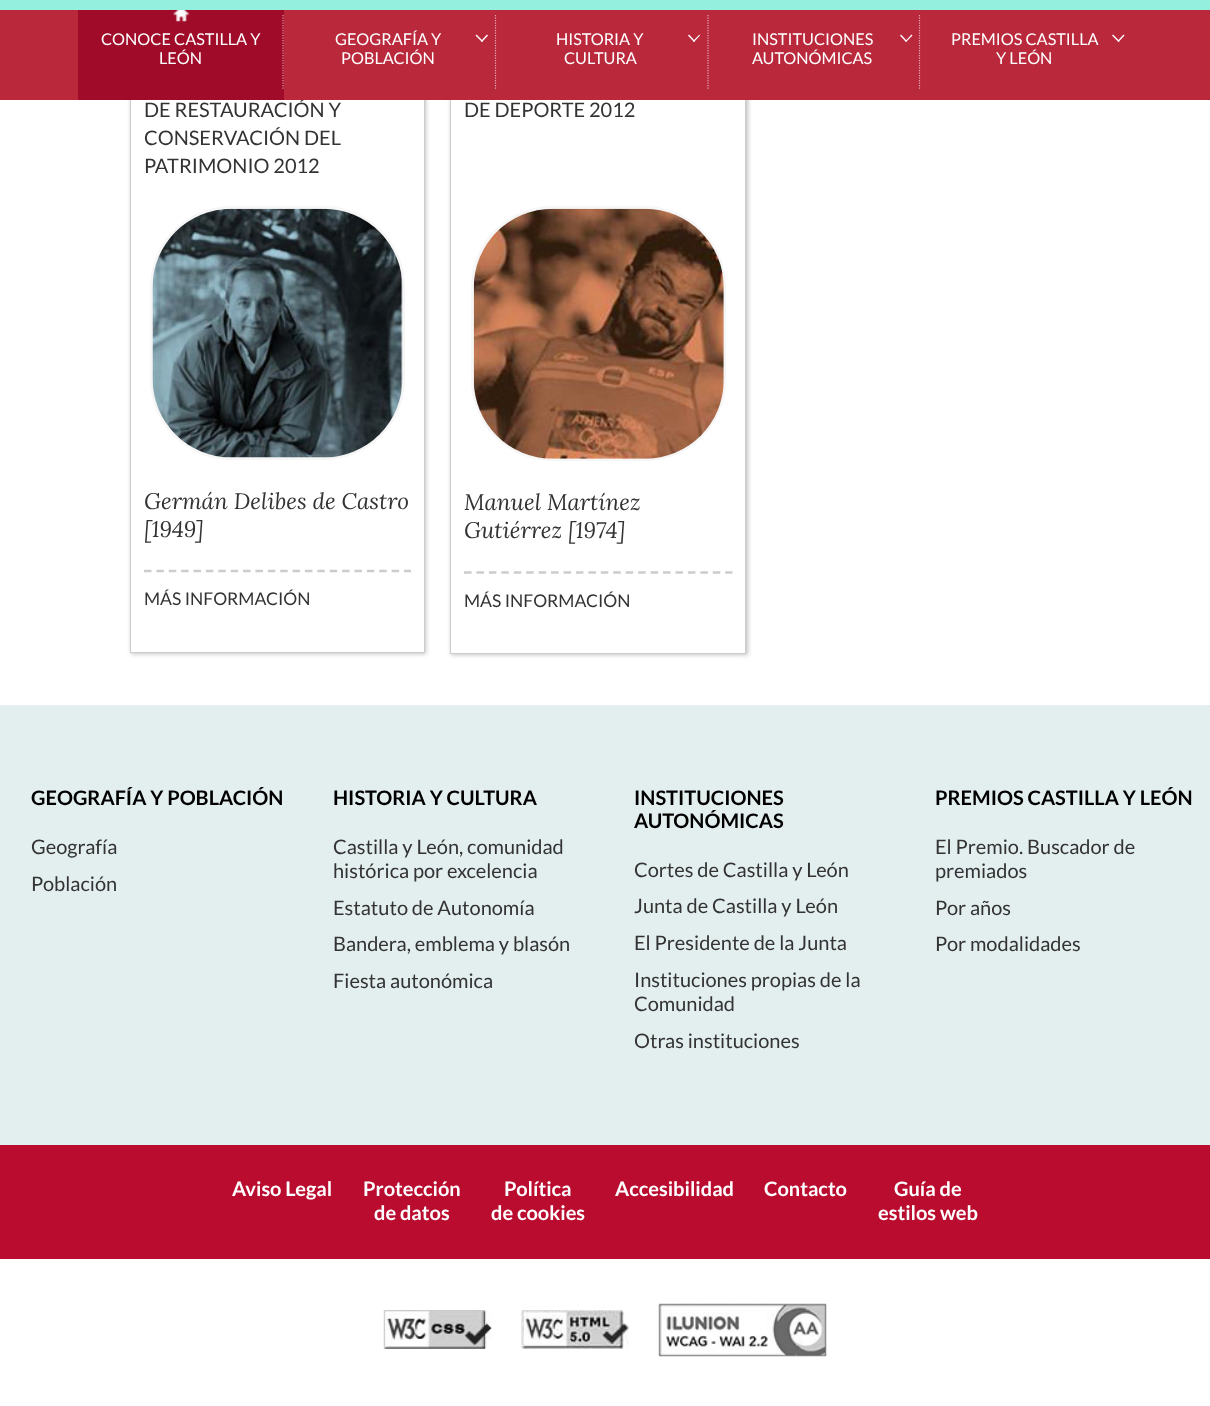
(async () => {
const canvas = document.querySelector("canvas")
canvas.width = 1210
canvas.height = 1406
const c = canvas.getContext("2d")
c.miterLimit = 4
c.fontKerning = "normal"
function T(s,x,y){c.fillText(s,x,y)}
function R(x,y,w,h){c.fillRect(x,y,w,h)}
async function I(src,x,y,w,h){const img=new Image();img.src=src;await img.decode();c.drawImage(img,x,y,w,h)}
let path
c.fillStyle="#fff"
R(0,0,1210,1406)
c.fillStyle="#94efdf"
R(0,0,1210,10)
c.save()
path = new Path2D("M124 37h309v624h-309zm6 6h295v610h-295z")
c.clip(path,"evenodd")
c.fillStyle="#4e4e4e57"
c.filter="blur(2px)"
c.beginPath()
c.rect(131,44,295,610)
c.fill()
c.filter="none"
c.restore()
c.strokeStyle="#ccc"
c.strokeRect(130.5,43.5,294,609)
c.font="20px Lato"
c.fillStyle="#333"
T("DE RESTAURACIÓN Y",144,117)
c.save()
path = new Path2D("M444 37h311v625h-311zm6 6h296v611h-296z")
c.clip(path,"evenodd")
c.fillStyle="#4e4e4e57"
c.filter="blur(2px)"
c.beginPath()
c.rect(451,44,297,611)
c.fill()
c.filter="none"
c.restore()
c.strokeRect(450.5,43.5,295,610)
c.fillStyle="#ba283b"
R(0,10,1210,90)
c.fillStyle="#9f0b28"
R(78,10,206,90)
await I("1.png",173,10,17,12)
c.font="16.25px Lato"
c.fillStyle="#fff"
T("CONOCE CASTILLA Y",101,45)
T("LEÓN",159,64)
path = new Path2D("M283 15v75")
c.strokeStyle="#d99da9"
c.lineWidth=1.2
c.setLineDash([1.25,1.25])
c.stroke(path)
T("GEOGRAFÍA Y",335,45)
path = new Path2D("M487 34.5l1 1l-6 6.5l-1-1z")
c.fill(path)
path = new Path2D("M476.5 34.5l6.5 6.5l-1 1l-6.5-6.5z")
c.fill(path)
T("POBLACIÓN",341,64)
path = new Path2D("M495.5 15v75")
c.strokeStyle="#e3a9b1"
c.stroke(path)
T("HISTORIA Y",556,45)
path = new Path2D("M699.5 34.5l.5 1l-6 6.5l-1-1z")
c.fill(path)
path = new Path2D("M689 34.5l6 6.5l-1 1l-6-6.5z")
c.fill(path)
T("CULTURA",564,64)
path = new Path2D("M708 15v75")
c.stroke(path)
T("INSTITUCIONES",752,45)
path = new Path2D("M911.5 34.5l1 1l-6.5 6.5l-.5-1z")
c.fill(path)
path = new Path2D("M901 34.5l6 6.5l-1 1l-6-6.5z")
c.fill(path)
T("AUTONÓMICAS",752,64)
path = new Path2D("M919.5 15v75")
c.stroke(path)
T("PREMIOS CASTILLA",951,45)
path = new Path2D("M1123.5 34.5l1 1l-6 6.5l-1-1z")
c.fill(path)
path = new Path2D("M1113 34.5l6.5 6.5l-1 1l-6.5-6.5z")
c.fill(path)
T("Y LEÓN",996,64)
c.font="20px Lato"
c.fillStyle="#333"
T("CONSERVACIÓN DEL",144,145)
T("PATRIMONIO 2012",144,173)
c.beginPath()
c.roundRect(151.5,207.5,252,251,79.5)
c.strokeStyle="#f6f6f6"
c.lineWidth=3
c.setLineDash([])
c.stroke()
await I("2.png",152,208,251,250)
c.font="italic 22.5px Lora"
T("Germán Delibes de Castro",144,509)
T("[1949]",144,537)
path = new Path2D("M144 571h267")
c.strokeStyle="#ccc"
c.lineWidth=2.5
c.setLineDash([7.5,4.88])
c.stroke(path)
c.font="17.5px Lato"
T("MÁS INFORMACIÓN",144,605)
c.font="20px Lato"
T("DE DEPORTE 2012",464,117)
c.beginPath()
c.roundRect(472.5,207.5,252,252,79.5)
c.strokeStyle="#f6f6f6"
c.lineWidth=3
c.setLineDash([])
c.stroke()
await I("3.png",473,208,251,251)
c.font="italic 22.5px Lora"
T("Manuel Martínez",464,510)
T("Gutiérrez [1974]",464,538)
path = new Path2D("M464 572.5h268.5")
c.strokeStyle="#ccc"
c.lineWidth=2.5
c.setLineDash([7.5,4.94])
c.stroke(path)
c.font="17.5px Lato"
T("MÁS INFORMACIÓN",464,607)
c.fillStyle="#e3eeee"
R(0,705,1210,440)
c.font="bold 20px Lato"
c.fillStyle="#000"
T("GEOGRAFÍA Y POBLACIÓN",31,805)
c.font="20px Lato"
c.fillStyle="#333"
T("Geografía",31,854)
T("Población",31,891)
c.font="bold 20px Lato"
c.fillStyle="#000"
T("HISTORIA Y CULTURA",333,805)
c.font="20px Lato"
c.fillStyle="#333"
T("Castilla y León, comunidad",333,854)
T("histórica por excelencia",333,878)
T("Estatuto de Autonomía",333,915)
T("Bandera, emblema y blasón",333,951)
T("Fiesta autonómica",333,988)
c.font="bold 20px Lato"
c.fillStyle="#000"
T("INSTITUCIONES",634,805)
T("AUTONÓMICAS",634,828)
c.font="20px Lato"
c.fillStyle="#333"
T("Cortes de Castilla y León",634,877)
T("Junta de Castilla y León",634,913)
T("El Presidente de la Junta",634,950)
T("Instituciones propias de la",634,987)
T("Comunidad",634,1011)
T("Otras instituciones",634,1048)
c.font="bold 20px Lato"
c.fillStyle="#000"
T("PREMIOS CASTILLA Y LEÓN",935,805)
c.font="20px Lato"
c.fillStyle="#333"
T("El Premio. Buscador de",935,854)
T("premiados",935,878)
T("Por años",935,915)
T("Por modalidades",935,951)
c.fillStyle="#ba0c2f"
R(0,1145,1210,114)
c.font="bold 20px Lato"
c.fillStyle="#fff"
T("Aviso Legal",232,1196)
T("Protección",363,1196)
T("de datos",374,1220)
T("Política",504,1196)
T("de cookies",491,1220)
T("Accesibilidad",615,1196)
T("Contacto",764,1196)
T("Guía de",894,1196)
T("estilos web",878,1220)
await I("4.png",383,1310,109,39)
await I("5.png",521,1310,108,39)
await I("6.png",658,1303,169,54)
})()
